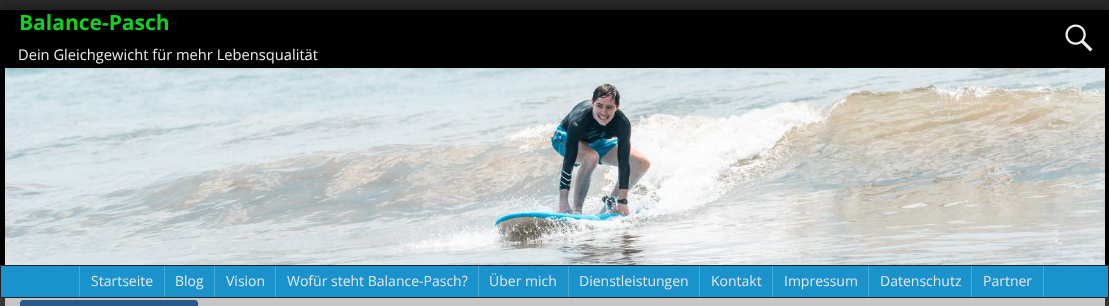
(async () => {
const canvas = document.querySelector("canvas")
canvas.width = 1109
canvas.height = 306
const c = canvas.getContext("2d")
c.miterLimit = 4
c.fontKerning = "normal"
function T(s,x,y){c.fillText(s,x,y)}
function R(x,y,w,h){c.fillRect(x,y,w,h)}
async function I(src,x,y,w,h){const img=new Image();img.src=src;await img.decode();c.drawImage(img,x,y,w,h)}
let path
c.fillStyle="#505050"
R(0,0,1109,306)
await I("1.png",0,0,1109,306)
c.fillStyle="#00000040"
c.filter="blur(3px)"
c.beginPath()
c.rect(1,6,1108,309)
c.fill()
c.filter="none"
c.fillStyle="#c6c6c6"
R(5,298,1100,8)
c.fillStyle="#000"
R(0,10,1109,255)
c.font="bold 21px Open Sans"
c.fillStyle="#10d120"
T("Balance-Pasch",19,30)
await I("2.png",1065,24,28,28)
c.font="14.7px Open Sans"
c.fillStyle="#ededed"
T("Dein Gleichgewicht für mehr Lebensqualität",18,60)
await I("3.png",5,68,1100,197)
c.fillStyle="#1a93cc"
c.beginPath()
c.rect(.5,265.5,1108,32)
c.fill()
c.strokeStyle="#222"
c.stroke()
c.fillStyle="#48a9d6"
R(79,266,1,31)
R(164,266,1,31)
c.font="14px Open Sans"
c.fillStyle="#e6e6e6"
T("Startseite",91,286)
c.fillStyle="#48a9d6"
R(214,266,1,31)
c.fillStyle="#e6e6e6"
T("Blog",175,286)
c.fillStyle="#48a9d6"
R(275,266,1,31)
c.fillStyle="#e6e6e6"
T("Vision",226,286)
c.fillStyle="#48a9d6"
R(478,266,1,31)
c.fillStyle="#e6e6e6"
T("Wofür steht Balance-Pasch?",287,286)
c.fillStyle="#48a9d6"
R(568,266,1,31)
c.fillStyle="#e6e6e6"
T("Über mich",489,286)
c.fillStyle="#48a9d6"
R(699,266,1,31)
c.fillStyle="#e6e6e6"
T("Dienstleistungen",579,286)
c.fillStyle="#48a9d6"
R(772,266,1,31)
c.fillStyle="#e6e6e6"
T("Kontakt",711,286)
c.fillStyle="#48a9d6"
R(868,266,1,31)
c.fillStyle="#e6e6e6"
T("Impressum",784,286)
c.fillStyle="#48a9d6"
R(971,266,1,31)
c.fillStyle="#e6e6e6"
T("Datenschutz",880,286)
c.fillStyle="#48a9d6"
R(1043,266,1,31)
c.fillStyle="#e6e6e6"
T("Partner",983,286)
c.fillStyle="#29598c"
path = new Path2D("M23 300h63v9h-63c-1.5 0-3-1.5-3-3v-3c0-1.5 1.5-3 3-3z")
c.fill(path)
R(86,300,47,6)
path = new Path2D("M133 300h62c1.5 0 3 1.5 3 3v3c0 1.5-1.5 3-3 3h-62z")
c.fill(path)
})()
